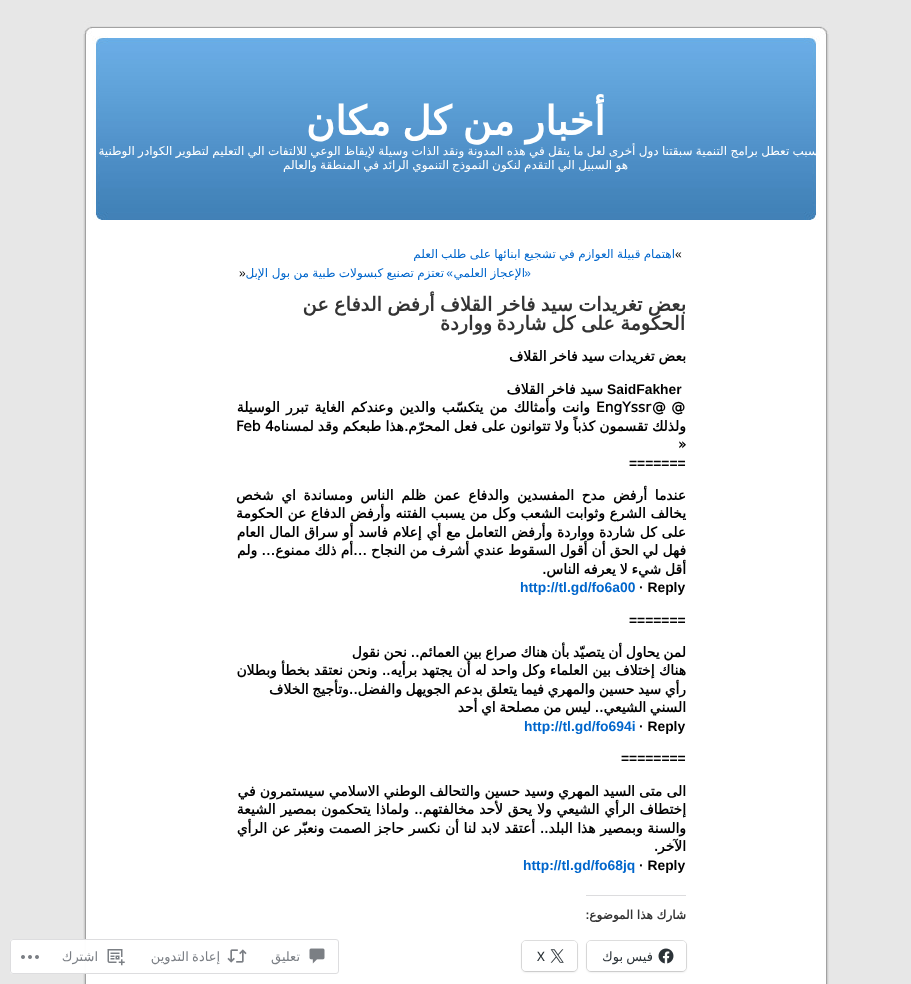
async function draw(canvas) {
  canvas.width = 911
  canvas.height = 984
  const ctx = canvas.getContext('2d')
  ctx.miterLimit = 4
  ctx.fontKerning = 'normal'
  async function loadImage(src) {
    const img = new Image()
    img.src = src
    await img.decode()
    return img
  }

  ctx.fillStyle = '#e7e7e7'
  ctx.fillRect(0, 0, 911, 984)
  ctx.drawImage(await loadImage('image0.png'), 83, 220, 746, 764)
  ctx.drawImage(await loadImage('image1.png'), 83, 20, 746, 200)
  ctx.wordSpacing = '-1.5px'
  ctx.direction = 'rtl'
  ctx.font = 'bold 40px DejaVu Sans'
  ctx.fillStyle = '#fff'
  ctx.fillText('أخبار من كل مكان', 605, 135)
  ctx.wordSpacing = '-0.5px'
  ctx.font = '12px DejaVu Sans'
  ctx.fillText('بسبب تعطل برامج التنمية سبقتنا دول أخرى لعل ما ينقل في هذه المدونة ونقد الذات وسيلة لإيقاظ الوعي للالتفات الي التعليم لتطوير الكوادر الوطنية و', 822, 155)
  ctx.fillText('هو السبيل الي التقدم', 628, 169)
  ctx.fillText('لنكون النموذج', 521, 169)
  ctx.fillText('التنموي الرائد في المنطقة والعالم', 449, 169)
  ctx.wordSpacing = '0px'
  ctx.direction = 'ltr'
  ctx.font = '12px Liberation Sans'
  ctx.fillStyle = '#000'
  ctx.fillText('«', 675, 258)
  ctx.wordSpacing = '-0.5px'
  ctx.direction = 'rtl'
  ctx.font = '12px DejaVu Sans'
  ctx.fillStyle = '#06c'
  ctx.fillText('اهتمام قبيلة العوازم في تشجيع ابنائها على طلب', 675, 258)
  ctx.wordSpacing = '0px'
  ctx.fillText('العلم', 438, 258)
  ctx.font = '12px Liberation Sans'
  ctx.fillText('«', 531, 277)
  ctx.wordSpacing = '-0.5px'
  ctx.font = '12px DejaVu Sans'
  ctx.fillText('الإعجاز العلمي', 525, 277)
  ctx.wordSpacing = '0px'
  ctx.font = '12px Liberation Sans'
  ctx.fillText('»', 453, 277)
  ctx.wordSpacing = '-0.5px'
  ctx.font = '12px DejaVu Sans'
  ctx.fillText('تعتزم تصنيع كبسولات طبية من بول', 444, 277)
  ctx.wordSpacing = '0px'
  ctx.fillText('الإبل', 268, 277)
  ctx.direction = 'ltr'
  ctx.font = '12px Liberation Sans'
  ctx.fillStyle = '#000'
  ctx.fillText('»', 239, 277)
  ctx.wordSpacing = '-0.75px'
  ctx.direction = 'rtl'
  ctx.font = 'bold 19.25px DejaVu Sans'
  ctx.fillStyle = '#333'
  ctx.fillText('بعض تغريدات سيد فاخر القلاف أرفض الدفاع عن', 686, 311)
  ctx.fillText('الحكومة على كل شاردة', 685, 330)
  ctx.wordSpacing = '0px'
  ctx.fillText('وواردة', 492, 330)
  ctx.wordSpacing = '-0.5px'
  ctx.font = 'bold 13.85px DejaVu Sans'
  ctx.fillStyle = '#000'
  ctx.fillText('بعض تغريدات سيد فاخر القلاف', 686, 361)
  ctx.wordSpacing = '0px'
  ctx.direction = 'ltr'
  ctx.font = 'bold 13.85px Liberation Sans'
  ctx.fillText('SaidFakher', 607, 394)
  ctx.direction = 'rtl'
  ctx.font = 'bold 13.85px DejaVu Sans'
  ctx.fillText('سيد فاخر القلاف', 603, 394)
  ctx.wordSpacing = '1px'
  ctx.direction = 'ltr'
  ctx.fillText('@ @', 652, 412)
  ctx.wordSpacing = '0px'
  ctx.fillText('EngYssr', 596, 412)
  ctx.wordSpacing = '1.75px'
  ctx.direction = 'rtl'
  ctx.fillText('وانت وأمثالك من يتكسّب والدين وعندكم الغاية تبرر الوسيلة', 590, 412)
  ctx.wordSpacing = '-0.25px'
  ctx.fillText('ولذلك تقسمون كذباً ولا تتوانون على فعل المحرّم.هذا طبعكم وقد لمسناه', 686, 431)
  ctx.wordSpacing = '0px'
  ctx.direction = 'ltr'
  ctx.fillText('Feb 4', 236, 431)
  ctx.fillText('»', 678, 449)
  ctx.font = 'bold 13.85px Liberation Sans'
  ctx.fillText('=======', 629, 468)
  ctx.wordSpacing = '3.25px'
  ctx.direction = 'rtl'
  ctx.font = 'bold 13.85px DejaVu Sans'
  ctx.fillText('عندما أرفض مدح المفسدين والدفاع عمن ظلم الناس ومساندة اي شخص', 686, 500)
  ctx.wordSpacing = '0.25px'
  ctx.fillText('يخالف الشرع وثوابت الشعب وكل من يسبب الفتنه وأرفض الدفاع عن الحكومة', 686, 518)
  ctx.wordSpacing = '0.4px'
  ctx.fillText('على كل شاردة وواردة وأرفض التعامل مع أي إعلام فاسد أو سراق المال العام', 686, 537)
  ctx.wordSpacing = '-0.2px'
  ctx.fillText('فهل لي الحق أن أقول السقوط عندي أشرف من النجاح …أم ذلك ممنوع… ولم', 686, 555)
  ctx.wordSpacing = '-0.5px'
  ctx.fillText('أقل شيء لا يعرفه الناس.', 686, 574)
  ctx.wordSpacing = '0px'
  ctx.direction = 'ltr'
  ctx.font = 'bold 13.85px Liberation Sans'
  ctx.fillText('· Reply', 639, 592)
  ctx.fillStyle = '#06c'
  ctx.fillText('http://tl.gd/fo6a00', 520, 592)
  ctx.fillStyle = '#000'
  ctx.fillText('=======', 629, 625)
  ctx.wordSpacing = '-0.75px'
  ctx.direction = 'rtl'
  ctx.font = 'bold 13.85px DejaVu Sans'
  ctx.fillText('لمن يحاول أن يتصيّد بأن هناك صراع بين العمائم.. نحن نقول', 686, 657)
  ctx.wordSpacing = '0px'
  ctx.fillText('هناك إختلاف بين العلماء وكل واحد له أن يجتهد برأيه.. ونحن نعتقد بخطأ وبطلان', 686, 675)
  ctx.wordSpacing = '-0.75px'
  ctx.fillText('رأي سيد حسين والمهري فيما يتعلق بدعم الجويهل والفضل..وتأجيج الخلاف', 686, 694)
  ctx.fillText('السني الشيعي.. ليس من مصلحة اي أحد', 686, 712)
  ctx.wordSpacing = '0px'
  ctx.direction = 'ltr'
  ctx.font = 'bold 13.85px Liberation Sans'
  ctx.fillText('· Reply', 639, 731)
  ctx.fillStyle = '#06c'
  ctx.fillText('http://tl.gd/fo694i', 524, 731)
  ctx.fillStyle = '#000'
  ctx.fillText('========', 621, 763)
  ctx.wordSpacing = '-0.25px'
  ctx.direction = 'rtl'
  ctx.font = 'bold 13.85px DejaVu Sans'
  ctx.fillText('الى متى السيد المهري وسيد حسين والتحالف الوطني الاسلامي سيستمرون في', 686, 796)
  ctx.wordSpacing = '0.5px'
  ctx.fillText('إختطاف الرأي الشيعي ولا يحق لأحد مخالفتهم.. ولماذا يتحكمون بمصير الشيعة', 686, 814)
  ctx.wordSpacing = '0.25px'
  ctx.fillText('والسنة وبمصير هذا البلد.. أعتقد لابد لنا أن نكسر حاجز الصمت ونعبّر عن الرأي', 686, 833)
  ctx.wordSpacing = '0px'
  ctx.fillText('الآخر.', 686, 851)
  ctx.direction = 'ltr'
  ctx.font = 'bold 13.85px Liberation Sans'
  ctx.fillText('· Reply', 639, 870)
  ctx.fillStyle = '#06c'
  ctx.fillText('http://tl.gd/fo68jq', 523, 870)
  ctx.fillStyle = '#dcdcde'
  ctx.fillRect(586, 895, 100, 1)
  ctx.direction = 'rtl'
  ctx.font = 'bold 12px DejaVu Sans'
  ctx.fillStyle = '#333'
  ctx.fillText('شارك هذا الموضوع:', 686, 919)
  ctx.beginPath()
  ctx.roundRect(586.5, 940.5, 100, 31, 4.5)
  ctx.strokeStyle = '#e0e0e0'
  ctx.stroke()
  ctx.fillStyle = '#0000001f'
  ctx.filter = 'blur(1px)'
  ctx.beginPath()
  ctx.roundRect(587, 942, 99, 30, 4)
  ctx.fill()
  ctx.filter = 'none'
  ctx.fillStyle = '#fff'
  ctx.beginPath()
  ctx.roundRect(587, 941, 99, 30, 4)
  ctx.fill()
  ctx.drawImage(await loadImage('image2.png'), 658, 948, 16, 16)
  ctx.wordSpacing = '-1px'
  ctx.font = '13px DejaVu Sans'
  ctx.fillStyle = '#2c3338'
  ctx.fillText('فيس بوك', 653, 961)
  ctx.beginPath()
  ctx.roundRect(521.5, 940.5, 56, 31, 4.5)
  ctx.stroke()
  ctx.fillStyle = '#0000001f'
  ctx.filter = 'blur(1px)'
  ctx.beginPath()
  ctx.roundRect(522, 942, 55, 30, 4)
  ctx.fill()
  ctx.filter = 'none'
  ctx.fillStyle = '#fff'
  ctx.beginPath()
  ctx.roundRect(522, 941, 55, 30, 4)
  ctx.fill()
  ctx.drawImage(await loadImage('image3.png'), 550, 949, 14, 14)
  ctx.wordSpacing = '0px'
  ctx.direction = 'ltr'
  ctx.font = '500 13px Open Sans'
  ctx.fillStyle = '#2c3338'
  ctx.fillText('X', 537, 961)
  ctx.fillStyle = '#fffffffa'
  ctx.beginPath()
  ctx.roundRect(10, 939, 329, 35, 3)
  ctx.fill()
  ctx.beginPath()
  ctx.roundRect(10.5, 939.5, 328, 34, 2.5)
  ctx.strokeStyle = '#dcdcdefa'
  ctx.stroke()
  ctx.drawImage(await loadImage('image4.png'), 309, 948, 16, 16)
  ctx.direction = 'rtl'
  ctx.font = '13px DejaVu Sans'
  ctx.fillStyle = '#7b7f85'
  ctx.fillText('تعليق', 300, 961)
  ctx.drawImage(await loadImage('image5.png'), 227, 949, 20, 14)
  ctx.wordSpacing = '-1px'
  ctx.fillText('إعادة التدوين', 220, 961)
  ctx.drawImage(await loadImage('image6.png'), 107, 949, 18, 17)
  ctx.wordSpacing = '0px'
  ctx.fillText('اشترك', 98, 961)
  ctx.drawImage(await loadImage('image7.png'), 21, 955, 18, 4)
}

draw(document.querySelector('canvas'))
